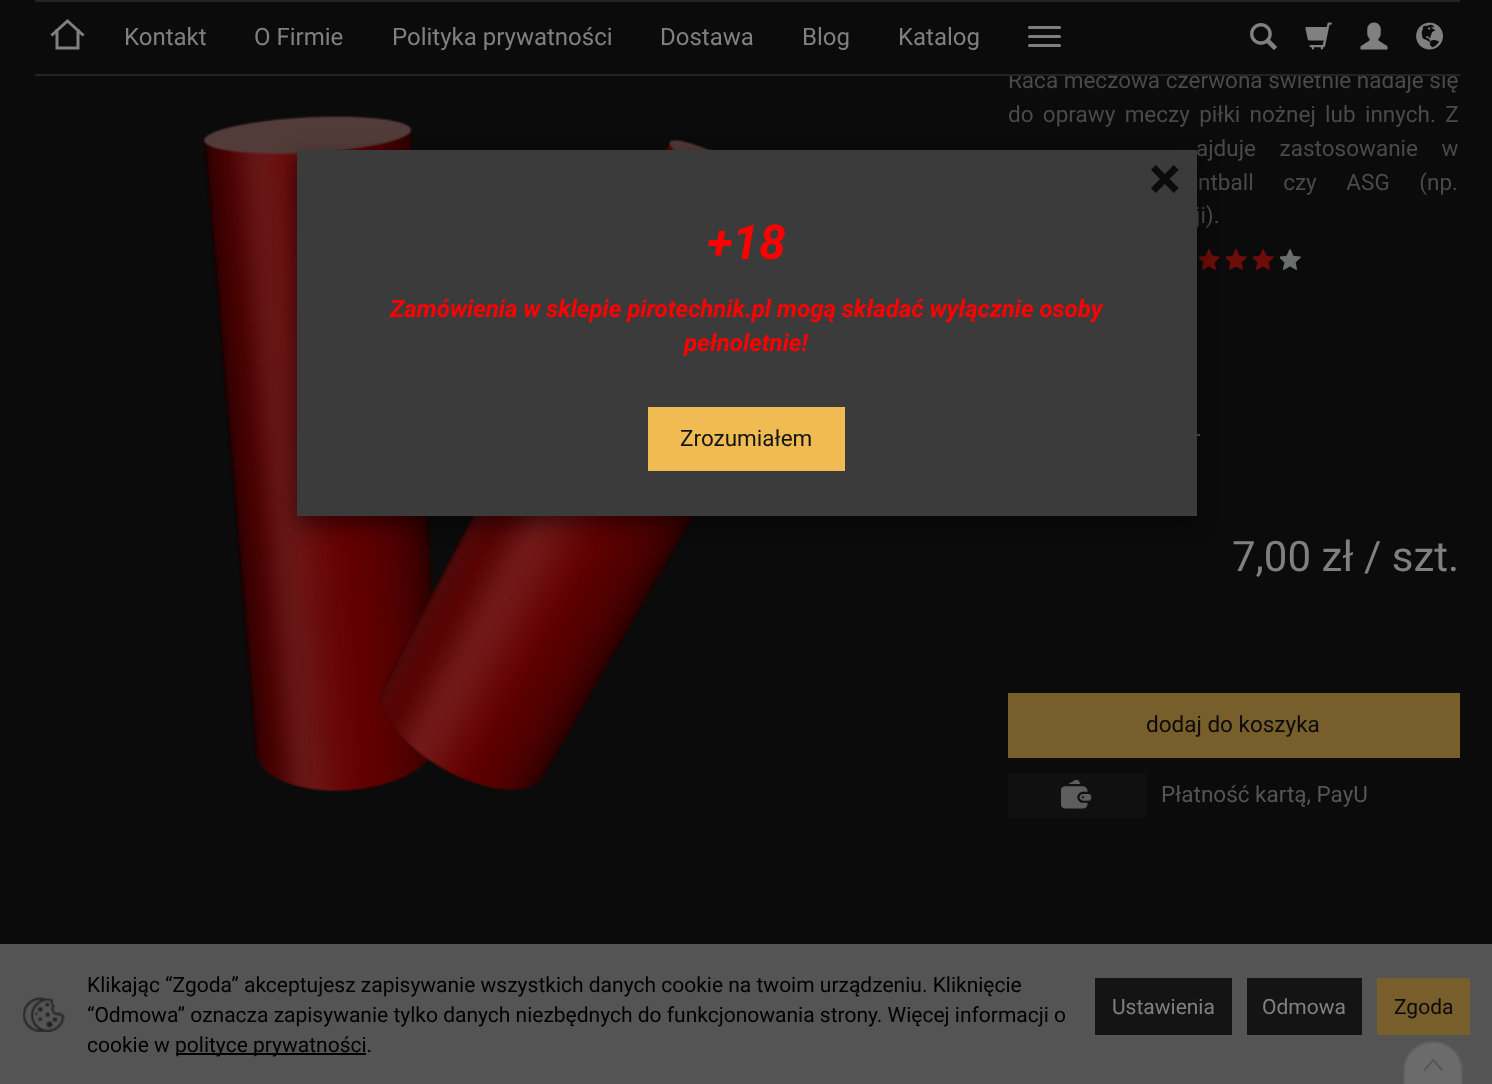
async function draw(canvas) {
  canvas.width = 1492
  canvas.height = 1084
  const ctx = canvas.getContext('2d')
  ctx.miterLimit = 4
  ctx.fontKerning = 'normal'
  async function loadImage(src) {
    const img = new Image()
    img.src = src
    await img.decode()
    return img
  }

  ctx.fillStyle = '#0b0b0b'
  ctx.fillRect(0, 0, 1492, 1084)
  ctx.fillStyle = '#545454'
  ctx.fillRect(0, 944, 1492, 140)
  ctx.font = '22.5px Roboto'
  ctx.fillStyle = '#4a4a4a'
  ctx.fillText('Raca meczowa czerwona świetnie nadaje się', 1008, 88)
  ctx.fillStyle = '#0b0b0b'
  ctx.fillRect(1009, 71, 437, 3)
  ctx.fillStyle = '#232323'
  ctx.fillRect(35, 0, 1425, 2)
  ctx.fillRect(35, 74, 1425, 2)
  ctx.beginPath()
  ctx.moveTo(52.5, 34.5)
  ctx.lineTo(57, 30.5)
  ctx.moveTo(57, 30.5)
  ctx.lineTo(67.5, 21)
  ctx.lineTo(78, 30.5)
  ctx.moveTo(57, 30.5)
  ctx.lineTo(57, 48)
  ctx.lineTo(78, 48)
  ctx.lineTo(78, 30.5)
  ctx.moveTo(82.5, 34.5)
  ctx.lineTo(78, 30.5)
  ctx.strokeStyle = '#808080'
  ctx.lineWidth = 3
  ctx.lineCap = 'square'
  ctx.stroke()
  ctx.font = '24px Roboto'
  ctx.fillStyle = '#808080'
  ctx.fillText('Kontakt', 124, 45)
  ctx.fillText('O Firmie', 254, 45)
  ctx.fillText('Polityka prywatności', 392, 45)
  ctx.fillText('Dostawa', 660, 45)
  ctx.fillText('Blog', 802, 45)
  ctx.fillText('Katalog', 898, 45)
  ctx.beginPath()
  ctx.roundRect(1028, 26, 33, 3, 1.5)
  ctx.fill()
  ctx.beginPath()
  ctx.roundRect(1028, 35, 33, 3, 1.5)
  ctx.fill()
  ctx.beginPath()
  ctx.roundRect(1028, 44, 33, 3, 1.5)
  ctx.fill()
  ctx.drawImage(await loadImage('image0.png'), 1250, 23, 27, 27)
  ctx.drawImage(await loadImage('image1.png'), 1305, 22, 27, 28)
  ctx.drawImage(await loadImage('image2.png'), 1360, 22, 28, 28)
  ctx.drawImage(await loadImage('image3.png'), 1416, 22, 27, 28)
  ctx.drawImage(await loadImage('image4.png'), 203, 115, 510, 677)
  ctx.wordSpacing = '3.75px'
  ctx.font = '22.5px Roboto'
  ctx.fillStyle = '#4a4a4a'
  ctx.fillText('do oprawy meczy piłki nożnej lub innych. Z', 1008, 122)
  ctx.wordSpacing = '18px'
  ctx.fillText('ajduje zastosowanie w', 1196, 156)
  ctx.wordSpacing = '24px'
  ctx.fillText('ntball czy ASG (np.', 1198, 190)
  ctx.wordSpacing = '0px'
  ctx.fillText('ji).', 1195, 223)
  ctx.drawImage(await loadImage('image5.png'), 1199, 249, 21, 21)
  ctx.drawImage(await loadImage('image5.png'), 1226, 249, 21, 21)
  ctx.drawImage(await loadImage('image5.png'), 1253, 249, 21, 21)
  ctx.drawImage(await loadImage('image6.png'), 1280, 249, 21, 21)
  ctx.fillStyle = '#555'
  ctx.fillRect(1197, 434, 3, 2)
  ctx.font = '42px Roboto'
  ctx.fillStyle = '#808080'
  ctx.fillText('7,00 zł / szt.', 1232, 571)
  ctx.fillStyle = '#785e2a'
  ctx.fillRect(1008, 693, 452, 65)
  ctx.font = '22.5px Roboto'
  ctx.fillStyle = '#0b0b0b'
  ctx.fillText('dodaj do koszyka', 1146, 732)
  ctx.fillStyle = '#101010'
  ctx.fillRect(1008, 773, 138, 45)
  ctx.drawImage(await loadImage('image7.png'), 1061, 780, 31, 29)
  ctx.fillStyle = '#555'
  ctx.fillText('Płatność kartą, PayU', 1161, 802)
  ctx.drawImage(await loadImage('image8.png'), 23, 997, 42, 35)
  ctx.font = '21px Roboto'
  ctx.fillStyle = '#000'
  ctx.fillText('Klikając “Zgoda” akceptujesz zapisywanie wszystkich danych cookie na twoim urządzeniu. Kliknięcie', 87, 992)
  ctx.fillText('“Odmowa” oznacza zapisywanie tylko danych niezbędnych do funkcjonowania strony. Więcej informacji o', 87, 1022)
  ctx.fillText('cookie w', 87, 1052)
  ctx.fillRect(176, 1053, 190, 2)
  ctx.fillText('polityce prywatności.', 175, 1052)
  ctx.fillStyle = '#141414'
  ctx.fillRect(1095, 978, 137, 57)
  ctx.fillStyle = '#808080'
  ctx.fillText('Ustawienia', 1112, 1014)
  ctx.fillStyle = '#141414'
  ctx.fillRect(1247, 978, 115, 57)
  ctx.fillStyle = '#808080'
  ctx.fillText('Odmowa', 1262, 1014)
  ctx.fillStyle = '#785e2a'
  ctx.fillRect(1377, 978, 93, 57)
  ctx.fillStyle = '#0b0b0b'
  ctx.fillText('Zgoda', 1394, 1014)
  ctx.fillStyle = '#00000080'
  ctx.filter = 'blur(11px)'
  ctx.beginPath()
  ctx.rect(297, 158, 900, 366)
  ctx.fill()
  ctx.filter = 'none'
  ctx.fillStyle = '#3b3b3b'
  ctx.fillRect(297, 150, 900, 366)
  ctx.font = 'bold 60px Roboto'
  ctx.fillStyle = '#0b0b0b'
  ctx.fillText('×', 1149, 199)
  ctx.font = 'italic bold 48px Roboto'
  ctx.fillStyle = '#f00'
  ctx.fillText('+18', 707, 259)
  ctx.font = 'italic bold 24px Roboto'
  ctx.fillText('Zamówienia w sklepie pirotechnik.pl mogą składać wyłącznie osoby', 390, 317)
  ctx.fillText('pełnoletnie!', 684, 351)
  ctx.fillStyle = '#f0bb53'
  ctx.fillRect(648, 407, 197, 64)
  ctx.font = '22.5px Roboto'
  ctx.fillStyle = '#161616'
  ctx.fillText('Zrozumiałem', 680, 446)
  ctx.fillStyle = '#6b6b6b'
  ctx.beginPath()
  ctx.moveTo(1433, 1042)
  ctx.bezierCurveTo(1449, 1042, 1462, 1055, 1462, 1071)
  ctx.lineTo(1462, 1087)
  ctx.lineTo(1404, 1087)
  ctx.lineTo(1404, 1071)
  ctx.bezierCurveTo(1404, 1055, 1417, 1042, 1433, 1042)
  ctx.closePath()
  ctx.fill()
  ctx.strokeStyle = '#606060'
  ctx.lineWidth = 2
  ctx.stroke()
  ctx.beginPath()
  ctx.moveTo(1424.5, 1070)
  ctx.lineTo(1433, 1060)
  ctx.lineTo(1442, 1070)
  ctx.strokeStyle = '#565656'
  ctx.lineWidth = 1.9
  ctx.lineCap = 'round'
  ctx.lineJoin = 'round'
  ctx.stroke()
}

draw(document.querySelector('canvas'))
